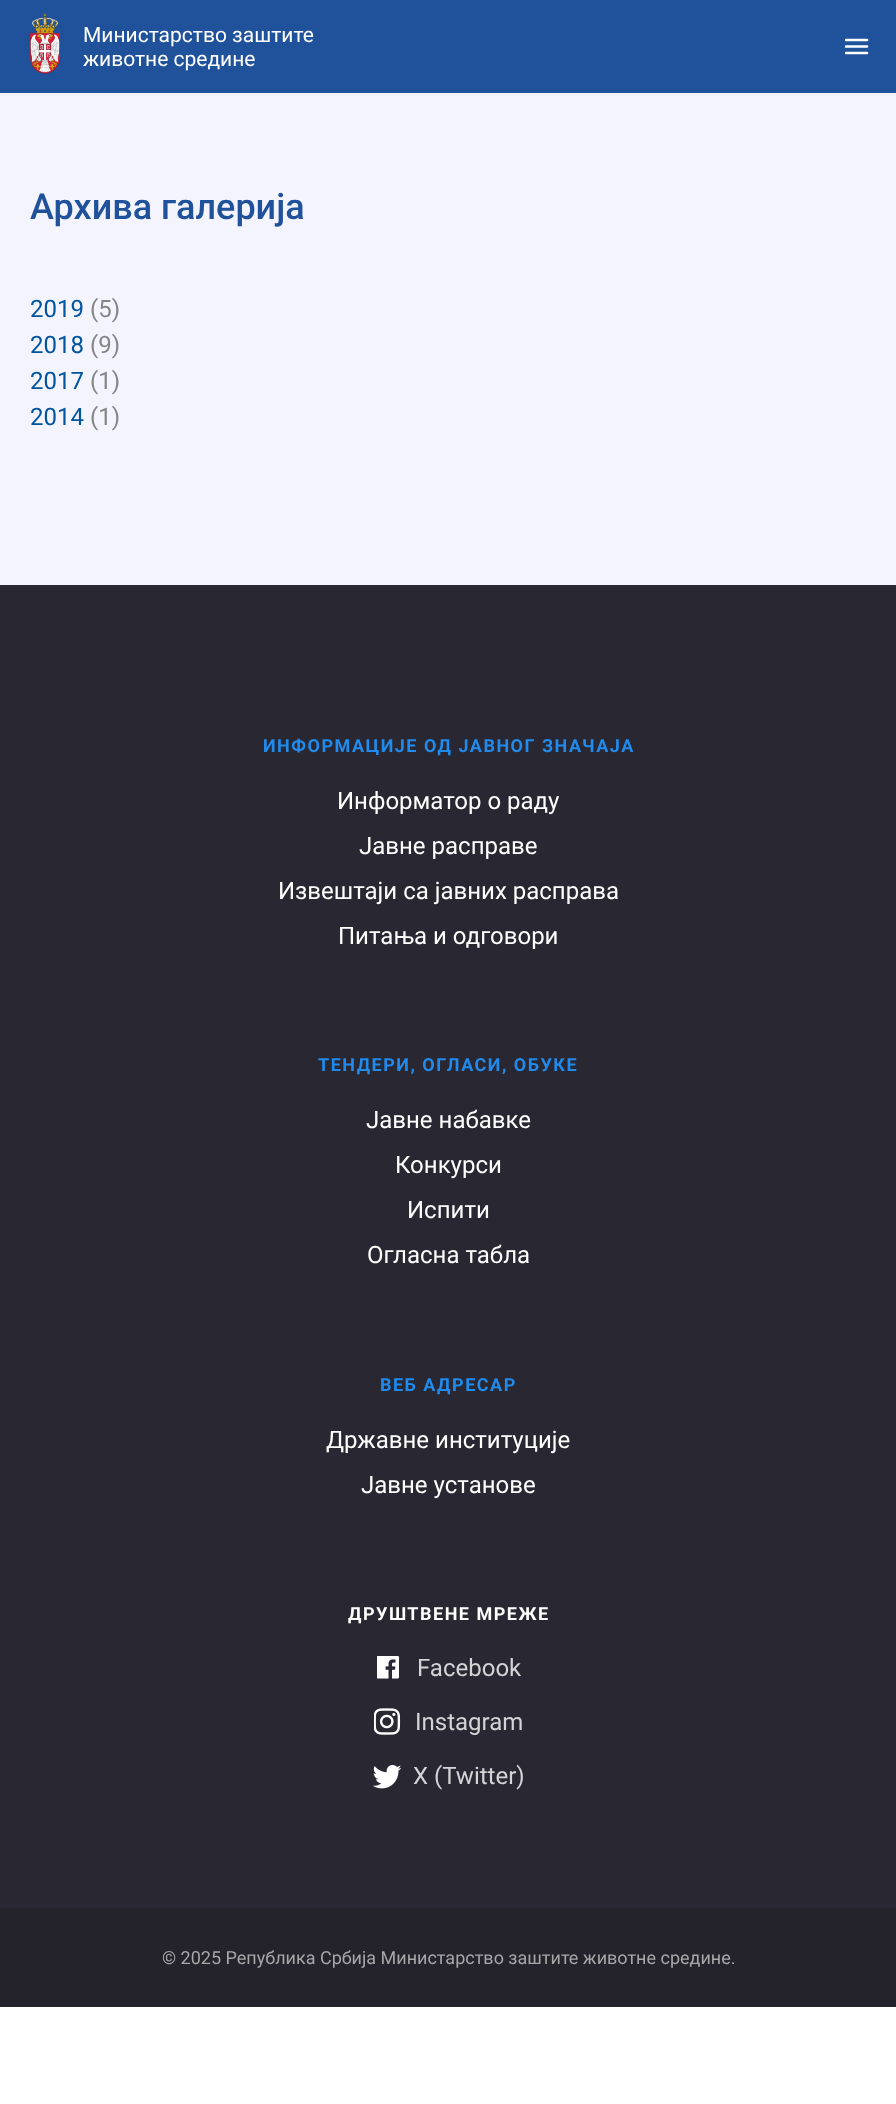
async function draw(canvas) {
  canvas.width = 896
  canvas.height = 2104
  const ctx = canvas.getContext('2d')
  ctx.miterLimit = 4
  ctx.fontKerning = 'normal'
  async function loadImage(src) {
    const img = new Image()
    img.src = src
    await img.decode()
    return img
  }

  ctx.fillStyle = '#fff'
  ctx.fillRect(0, 0, 896, 2104)
  ctx.fillStyle = '#20519b'
  ctx.fillRect(0, 0, 896, 93)
  ctx.drawImage(await loadImage('image0.png'), 30, 13, 30, 61)
  ctx.font = '21px Roboto'
  ctx.fillStyle = '#fff'
  ctx.fillText('Министарство заштите', 83, 42)
  ctx.fillText('животне средине', 83, 66)
  ctx.save()
  ctx.beginPath()
  ctx.rect(845, 38, 24, 18)
  ctx.clip()
  ctx.beginPath()
  ctx.moveTo(846, 46.5)
  ctx.lineTo(867, 46.5)
  ctx.moveTo(846, 40)
  ctx.lineTo(867, 40)
  ctx.moveTo(846, 53)
  ctx.lineTo(867, 53)
  ctx.strokeStyle = '#fff'
  ctx.lineWidth = 2.7
  ctx.lineCap = 'round'
  ctx.stroke()
  ctx.restore()
  ctx.fillStyle = '#f3f4fe'
  ctx.fillRect(0, 93, 896, 492)
  ctx.font = '500 36px Roboto'
  ctx.fillStyle = '#20519b'
  ctx.fillText('Архива галерија', 30, 219)
  ctx.font = '24px Roboto'
  ctx.fillStyle = '#0154a0'
  ctx.fillText('2019', 30, 317)
  ctx.fillStyle = '#858585'
  ctx.fillText('(5)', 90, 317)
  ctx.fillStyle = '#0154a0'
  ctx.fillText('2018', 30, 353)
  ctx.fillStyle = '#858585'
  ctx.fillText('(9)', 90, 353)
  ctx.fillStyle = '#0154a0'
  ctx.fillText('2017', 30, 389)
  ctx.fillStyle = '#858585'
  ctx.fillText('(1)', 90, 389)
  ctx.fillStyle = '#0154a0'
  ctx.fillText('2014', 30, 425)
  ctx.fillStyle = '#858585'
  ctx.fillText('(1)', 90, 425)
  ctx.fillStyle = '#292731'
  ctx.fillRect(0, 585, 896, 1323)
  ctx.letterSpacing = '1.5px'
  ctx.font = 'bold 18px Roboto'
  ctx.fillStyle = '#208bec'
  ctx.fillText('ИНФОРМАЦИЈЕ ОД ЈАВНОГ ЗНАЧАЈА', 263, 752)
  ctx.letterSpacing = '0px'
  ctx.font = '24px Roboto'
  ctx.fillStyle = '#fff'
  ctx.fillText('Информатор о раду', 337, 809)
  ctx.fillText('Јавне расправе', 359, 854)
  ctx.fillText('Извештаји са јавних расправа', 278, 899)
  ctx.fillText('Питања и одговори', 338, 944)
  ctx.letterSpacing = '1.5px'
  ctx.font = 'bold 18px Roboto'
  ctx.fillStyle = '#208bec'
  ctx.fillText('ТЕНДЕРИ, ОГЛАСИ, ОБУКЕ', 318, 1071)
  ctx.letterSpacing = '0px'
  ctx.font = '24px Roboto'
  ctx.fillStyle = '#fff'
  ctx.fillText('Јавне набавке', 366, 1128)
  ctx.fillText('Конкурси', 395, 1173)
  ctx.fillText('Испити', 407, 1218)
  ctx.fillText('Огласна табла', 367, 1263)
  ctx.letterSpacing = '1.5px'
  ctx.font = 'bold 18px Roboto'
  ctx.fillStyle = '#208bec'
  ctx.fillText('ВЕБ АДРЕСАР', 380, 1391)
  ctx.letterSpacing = '0px'
  ctx.font = '24px Roboto'
  ctx.fillStyle = '#fff'
  ctx.fillText('Државне институције', 326, 1448)
  ctx.fillText('Јавне установе', 361, 1493)
  ctx.letterSpacing = '1.5px'
  ctx.font = 'bold 18px Roboto'
  ctx.fillText('ДРУШТВЕНЕ МРЕЖЕ', 348, 1620)
  ctx.drawImage(await loadImage('image1.png'), 377, 1656, 22, 23)
  ctx.letterSpacing = '0px'
  ctx.font = '24px Roboto'
  ctx.fillStyle = '#d4d4d6'
  ctx.fillText('Facebook', 417, 1676)
  ctx.drawImage(await loadImage('image2.png'), 374, 1708, 27, 27)
  ctx.fillText('Instagram', 415, 1730)
  ctx.drawImage(await loadImage('image3.png'), 372, 1765, 30, 24)
  ctx.fillText('X (Twitter)', 413, 1784)
  ctx.fillStyle = '#24222b'
  ctx.fillRect(0, 1908, 896, 99)
  ctx.font = '18px Roboto'
  ctx.fillStyle = '#a7a7aa'
  ctx.fillText('© 2025 Република Србија Министарство заштите животне средине.', 162, 1964)
}

draw(document.querySelector('canvas'))
